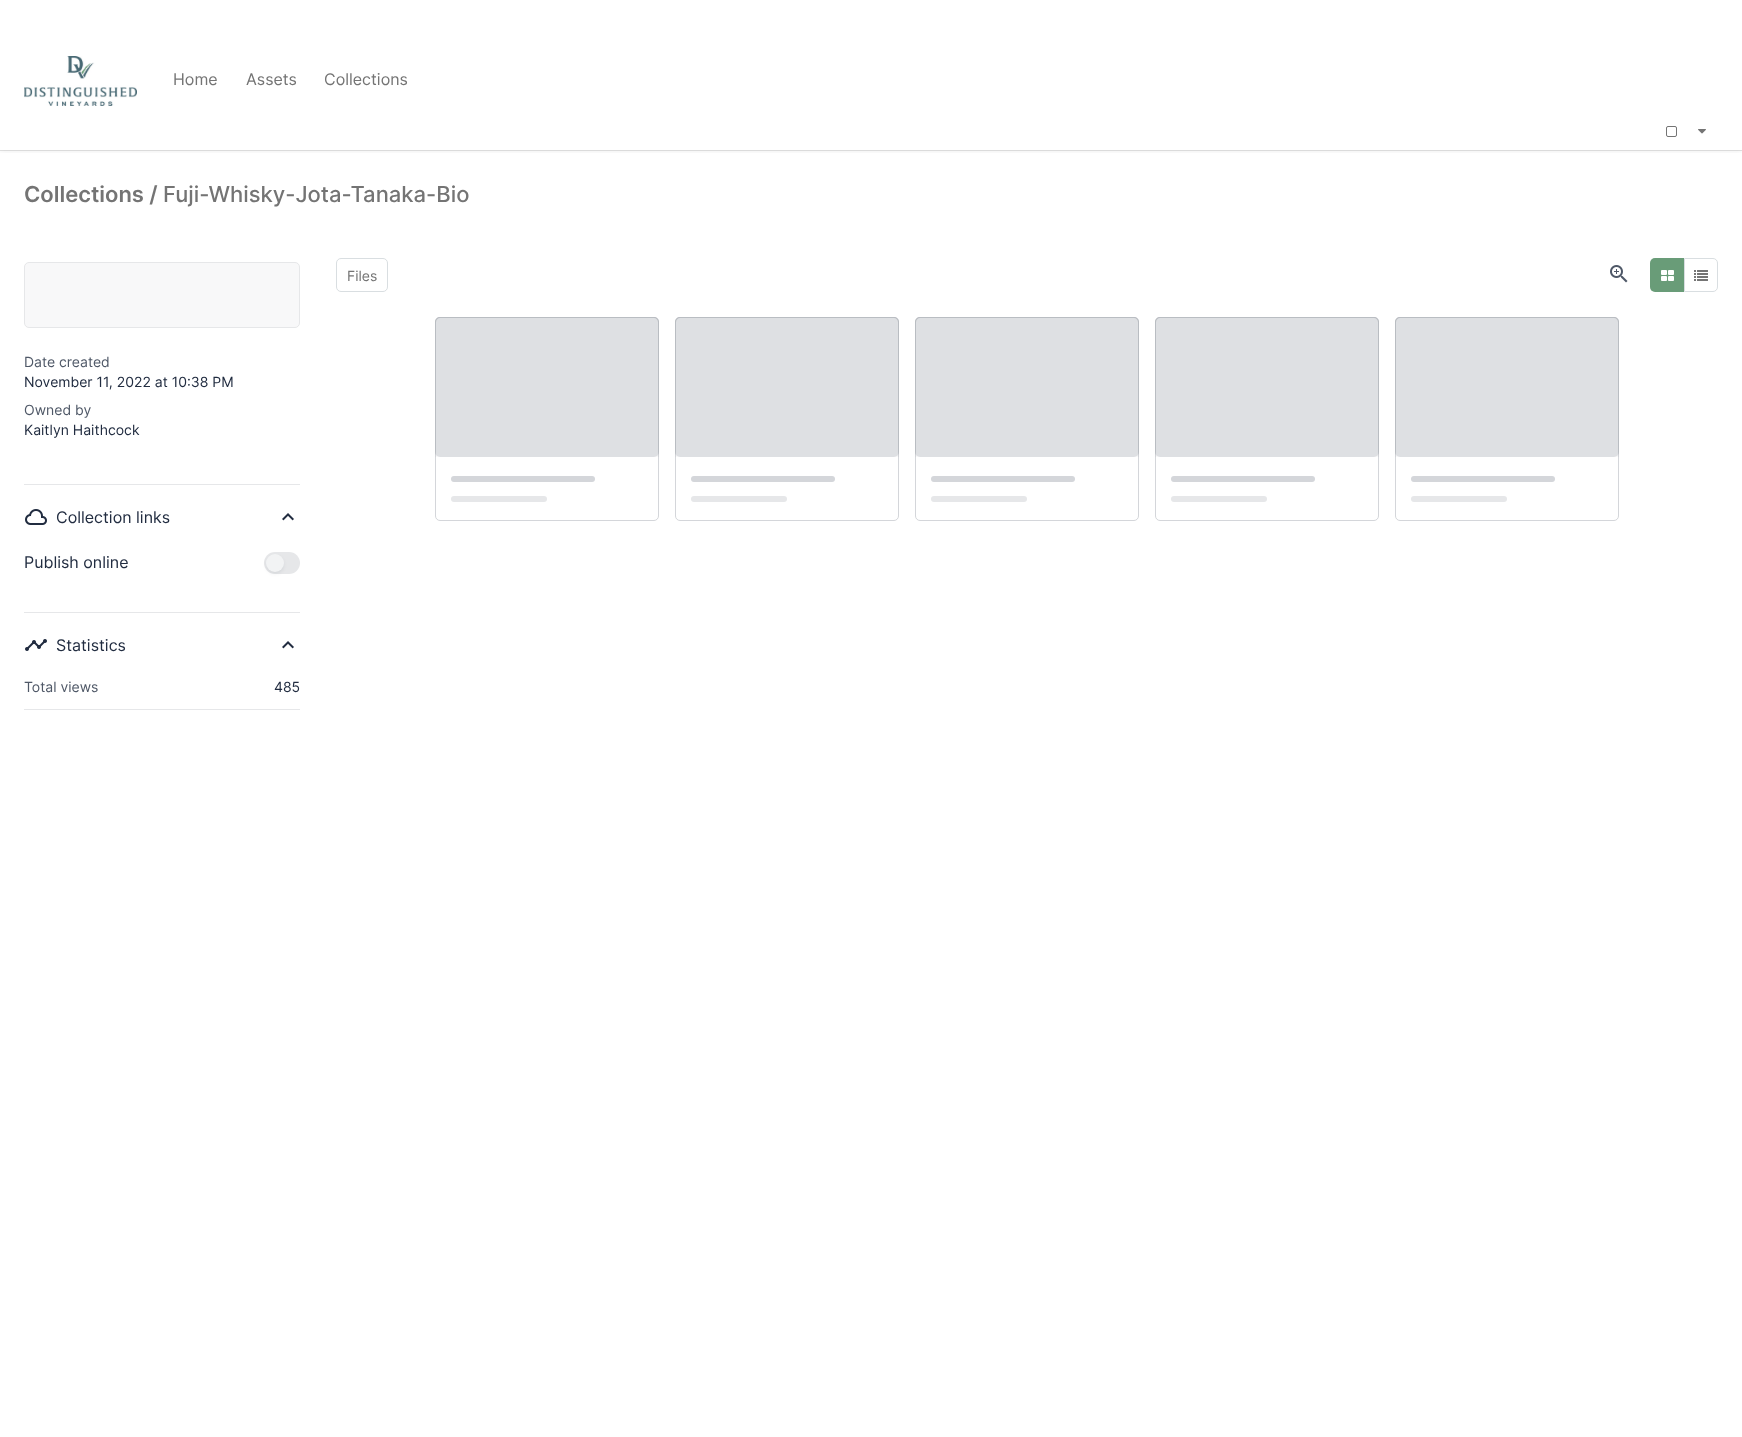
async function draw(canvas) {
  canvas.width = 1742
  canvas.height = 1437
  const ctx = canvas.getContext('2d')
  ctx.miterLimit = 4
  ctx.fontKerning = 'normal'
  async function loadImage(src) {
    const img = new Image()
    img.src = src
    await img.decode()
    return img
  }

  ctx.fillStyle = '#fff'
  ctx.fillRect(0, 0, 1742, 1437)
  ctx.save()
  ctx.beginPath()
  ctx.rect(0, 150, 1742, 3)
  ctx.clip()
  ctx.fillStyle = '#0000001a'
  ctx.filter = 'blur(3px)'
  ctx.beginPath()
  ctx.rect(0, 0, 1742, 150)
  ctx.fill()
  ctx.filter = 'none'
  ctx.restore()
  ctx.fillStyle = '#0000001a'
  ctx.fillRect(0, 150, 1742, 1)
  ctx.drawImage(await loadImage('image0.png'), 24, 56, 113, 50)
  ctx.font = '16px Inter'
  ctx.fillStyle = '#747474'
  ctx.fillText('Home', 173, 85)
  ctx.fillText('Assets', 246, 85)
  ctx.fillText('Collections', 324, 85)
  ctx.beginPath()
  ctx.roundRect(1666.5, 126.5, 10, 10, 1.5)
  ctx.strokeStyle = '#747474'
  ctx.stroke()
  ctx.drawImage(await loadImage('image1.png'), 1698, 129, 8, 5)
  ctx.font = '600 22px Inter'
  ctx.fillText('Collections /', 24, 202)
  ctx.font = '500 22px Inter'
  ctx.fillText('Fuji-Whisky-Jota-Tanaka-Bio', 163, 202)
  ctx.beginPath()
  ctx.roundRect(336.5, 258.5, 51, 33, 4.5)
  ctx.strokeStyle = '#d9dee1'
  ctx.stroke()
  ctx.font = '14px Inter'
  ctx.fillText('Files', 347, 281)
  ctx.drawImage(await loadImage('image2.png'), 1610, 265, 18, 18)
  ctx.fillStyle = '#699c78'
  ctx.beginPath()
  ctx.roundRect(1650, 258, 34, 34, [5, 0, 0, 5])
  ctx.fill()
  ctx.drawImage(await loadImage('image3.png'), 1661, 270, 13, 11)
  ctx.beginPath()
  ctx.roundRect(1684.5, 258.5, 33, 33, [0, 4.5, 4.5, 0])
  ctx.stroke()
  ctx.drawImage(await loadImage('image4.png'), 1694, 270, 14, 11)
  ctx.beginPath()
  ctx.roundRect(435.5, 317.5, 223, 203, 4.5)
  ctx.strokeStyle = '#d4d6da'
  ctx.stroke()
  ctx.fillStyle = '#f8f8f9'
  ctx.beginPath()
  ctx.roundRect(435, 317, 224, 140, [5, 5, 0, 0])
  ctx.fill()
  ctx.fillStyle = '#0310261a'
  ctx.beginPath()
  ctx.roundRect(435, 317, 224, 140, 5)
  ctx.fill()
  ctx.fillStyle = '#0310262b'
  ctx.beginPath()
  ctx.moveTo(440, 317)
  ctx.lineTo(654, 317)
  ctx.bezierCurveTo(657, 317, 659, 319, 659, 322)
  ctx.lineTo(659, 457)
  ctx.lineTo(435, 457)
  ctx.lineTo(435, 322)
  ctx.bezierCurveTo(435, 319, 437, 317, 440, 317)
  ctx.closePath()
  ctx.moveTo(440, 318)
  ctx.lineTo(654, 318)
  ctx.bezierCurveTo(656, 318, 658, 320, 658, 322)
  ctx.lineTo(658, 457)
  ctx.lineTo(436, 457)
  ctx.lineTo(436, 322)
  ctx.bezierCurveTo(436, 320, 438, 318, 440, 318)
  ctx.closePath()
  ctx.fill('evenodd')
  ctx.fillStyle = '#d4d6da'
  ctx.beginPath()
  ctx.roundRect(451, 476, 144, 6, 3)
  ctx.fill()
  ctx.fillStyle = '#e6e7e9'
  ctx.beginPath()
  ctx.roundRect(451, 496, 96, 6, 3)
  ctx.fill()
  ctx.beginPath()
  ctx.roundRect(675.5, 317.5, 223, 203, 4.5)
  ctx.stroke()
  ctx.fillStyle = '#f8f8f9'
  ctx.beginPath()
  ctx.roundRect(675, 317, 224, 140, [5, 5, 0, 0])
  ctx.fill()
  ctx.fillStyle = '#0310261a'
  ctx.beginPath()
  ctx.roundRect(675, 317, 224, 140, 5)
  ctx.fill()
  ctx.fillStyle = '#0310262b'
  ctx.beginPath()
  ctx.moveTo(680, 317)
  ctx.lineTo(894, 317)
  ctx.bezierCurveTo(897, 317, 899, 319, 899, 322)
  ctx.lineTo(899, 457)
  ctx.lineTo(675, 457)
  ctx.lineTo(675, 322)
  ctx.bezierCurveTo(675, 319, 677, 317, 680, 317)
  ctx.closePath()
  ctx.moveTo(680, 318)
  ctx.lineTo(894, 318)
  ctx.bezierCurveTo(896, 318, 898, 320, 898, 322)
  ctx.lineTo(898, 457)
  ctx.lineTo(676, 457)
  ctx.lineTo(676, 322)
  ctx.bezierCurveTo(676, 320, 678, 318, 680, 318)
  ctx.closePath()
  ctx.fill('evenodd')
  ctx.fillStyle = '#d4d6da'
  ctx.beginPath()
  ctx.roundRect(691, 476, 144, 6, 3)
  ctx.fill()
  ctx.fillStyle = '#e6e7e9'
  ctx.beginPath()
  ctx.roundRect(691, 496, 96, 6, 3)
  ctx.fill()
  ctx.beginPath()
  ctx.roundRect(915.5, 317.5, 223, 203, 4.5)
  ctx.stroke()
  ctx.fillStyle = '#f8f8f9'
  ctx.beginPath()
  ctx.roundRect(915, 317, 224, 140, [5, 5, 0, 0])
  ctx.fill()
  ctx.fillStyle = '#0310261a'
  ctx.beginPath()
  ctx.roundRect(915, 317, 224, 140, 5)
  ctx.fill()
  ctx.fillStyle = '#0310262b'
  ctx.beginPath()
  ctx.moveTo(920, 317)
  ctx.lineTo(1134, 317)
  ctx.bezierCurveTo(1137, 317, 1139, 319, 1139, 322)
  ctx.lineTo(1139, 457)
  ctx.lineTo(915, 457)
  ctx.lineTo(915, 322)
  ctx.bezierCurveTo(915, 319, 917, 317, 920, 317)
  ctx.closePath()
  ctx.moveTo(920, 318)
  ctx.lineTo(1134, 318)
  ctx.bezierCurveTo(1136, 318, 1138, 320, 1138, 322)
  ctx.lineTo(1138, 457)
  ctx.lineTo(916, 457)
  ctx.lineTo(916, 322)
  ctx.bezierCurveTo(916, 320, 918, 318, 920, 318)
  ctx.closePath()
  ctx.fill('evenodd')
  ctx.fillStyle = '#d4d6da'
  ctx.beginPath()
  ctx.roundRect(931, 476, 144, 6, 3)
  ctx.fill()
  ctx.fillStyle = '#e6e7e9'
  ctx.beginPath()
  ctx.roundRect(931, 496, 96, 6, 3)
  ctx.fill()
  ctx.beginPath()
  ctx.roundRect(1155.5, 317.5, 223, 203, 4.5)
  ctx.stroke()
  ctx.fillStyle = '#f8f8f9'
  ctx.beginPath()
  ctx.roundRect(1155, 317, 224, 140, [5, 5, 0, 0])
  ctx.fill()
  ctx.fillStyle = '#0310261a'
  ctx.beginPath()
  ctx.roundRect(1155, 317, 224, 140, 5)
  ctx.fill()
  ctx.fillStyle = '#0310262b'
  ctx.beginPath()
  ctx.moveTo(1160, 317)
  ctx.lineTo(1374, 317)
  ctx.bezierCurveTo(1377, 317, 1379, 319, 1379, 322)
  ctx.lineTo(1379, 457)
  ctx.lineTo(1155, 457)
  ctx.lineTo(1155, 322)
  ctx.bezierCurveTo(1155, 319, 1157, 317, 1160, 317)
  ctx.closePath()
  ctx.moveTo(1160, 318)
  ctx.lineTo(1374, 318)
  ctx.bezierCurveTo(1376, 318, 1378, 320, 1378, 322)
  ctx.lineTo(1378, 457)
  ctx.lineTo(1156, 457)
  ctx.lineTo(1156, 322)
  ctx.bezierCurveTo(1156, 320, 1158, 318, 1160, 318)
  ctx.closePath()
  ctx.fill('evenodd')
  ctx.fillStyle = '#d4d6da'
  ctx.beginPath()
  ctx.roundRect(1171, 476, 144, 6, 3)
  ctx.fill()
  ctx.fillStyle = '#e6e7e9'
  ctx.beginPath()
  ctx.roundRect(1171, 496, 96, 6, 3)
  ctx.fill()
  ctx.beginPath()
  ctx.roundRect(1395.5, 317.5, 223, 203, 4.5)
  ctx.stroke()
  ctx.fillStyle = '#f8f8f9'
  ctx.beginPath()
  ctx.roundRect(1395, 317, 224, 140, [5, 5, 0, 0])
  ctx.fill()
  ctx.fillStyle = '#0310261a'
  ctx.beginPath()
  ctx.roundRect(1395, 317, 224, 140, 5)
  ctx.fill()
  ctx.fillStyle = '#0310262b'
  ctx.beginPath()
  ctx.moveTo(1400, 317)
  ctx.lineTo(1614, 317)
  ctx.bezierCurveTo(1617, 317, 1619, 319, 1619, 322)
  ctx.lineTo(1619, 457)
  ctx.lineTo(1395, 457)
  ctx.lineTo(1395, 322)
  ctx.bezierCurveTo(1395, 319, 1397, 317, 1400, 317)
  ctx.closePath()
  ctx.moveTo(1400, 318)
  ctx.lineTo(1614, 318)
  ctx.bezierCurveTo(1616, 318, 1618, 320, 1618, 322)
  ctx.lineTo(1618, 457)
  ctx.lineTo(1396, 457)
  ctx.lineTo(1396, 322)
  ctx.bezierCurveTo(1396, 320, 1398, 318, 1400, 318)
  ctx.closePath()
  ctx.fill('evenodd')
  ctx.fillStyle = '#d4d6da'
  ctx.beginPath()
  ctx.roundRect(1411, 476, 144, 6, 3)
  ctx.fill()
  ctx.fillStyle = '#e6e7e9'
  ctx.beginPath()
  ctx.roundRect(1411, 496, 96, 6, 3)
  ctx.fill()
  ctx.fillStyle = '#f8f8f9'
  ctx.beginPath()
  ctx.roundRect(24.5, 262.5, 275, 65, 4.5)
  ctx.fill()
  ctx.strokeStyle = '#e6e7e9'
  ctx.stroke()
  ctx.fillStyle = '#4f5867'
  ctx.fillText('Date created', 24, 367)
  ctx.fillStyle = '#212c40'
  ctx.fillText('November 11, 2022 at 10:38 PM', 24, 387)
  ctx.fillStyle = '#4f5867'
  ctx.fillText('Owned by', 24, 415)
  ctx.fillStyle = '#212c40'
  ctx.fillText('Kaitlyn Haithcock', 24, 435)
  ctx.fillStyle = '#e6e7e9'
  ctx.fillRect(24, 484, 276, 1)
  ctx.drawImage(await loadImage('image5.png'), 25, 509, 22, 16)
  ctx.font = '16px Inter'
  ctx.fillStyle = '#212c40'
  ctx.fillText('Collection links', 56, 523)
  ctx.drawImage(await loadImage('image6.png'), 282, 513, 12, 8)
  ctx.fillText('Publish online', 24, 568)
  ctx.fillStyle = '#e6e7e9'
  ctx.beginPath()
  ctx.roundRect(264, 552, 36, 22, 11)
  ctx.fill()
  ctx.fillStyle = '#0310261a'
  ctx.filter = 'blur(2px)'
  ctx.beginPath()
  ctx.roundRect(267, 557, 16, 16, 8)
  ctx.fill()
  ctx.filter = 'none'
  ctx.fillStyle = '#f2f3f4'
  ctx.beginPath()
  ctx.arc(275, 563, 9, 0, 2 * Math.PI)
  ctx.fill()
  ctx.fillStyle = '#e6e7e9'
  ctx.fillRect(24, 612, 276, 1)
  ctx.drawImage(await loadImage('image7.png'), 25, 639, 22, 12)
  ctx.fillStyle = '#212c40'
  ctx.fillText('Statistics', 56, 651)
  ctx.drawImage(await loadImage('image6.png'), 282, 641, 12, 8)
  ctx.font = '14px Inter'
  ctx.fillStyle = '#4f5867'
  ctx.fillText('Total views', 24, 692)
  ctx.fillStyle = '#212c40'
  ctx.fillText('485', 274, 692)
  ctx.fillStyle = '#e6e7e9'
  ctx.fillRect(24, 709, 276, 1)
}

draw(document.querySelector('canvas'))
